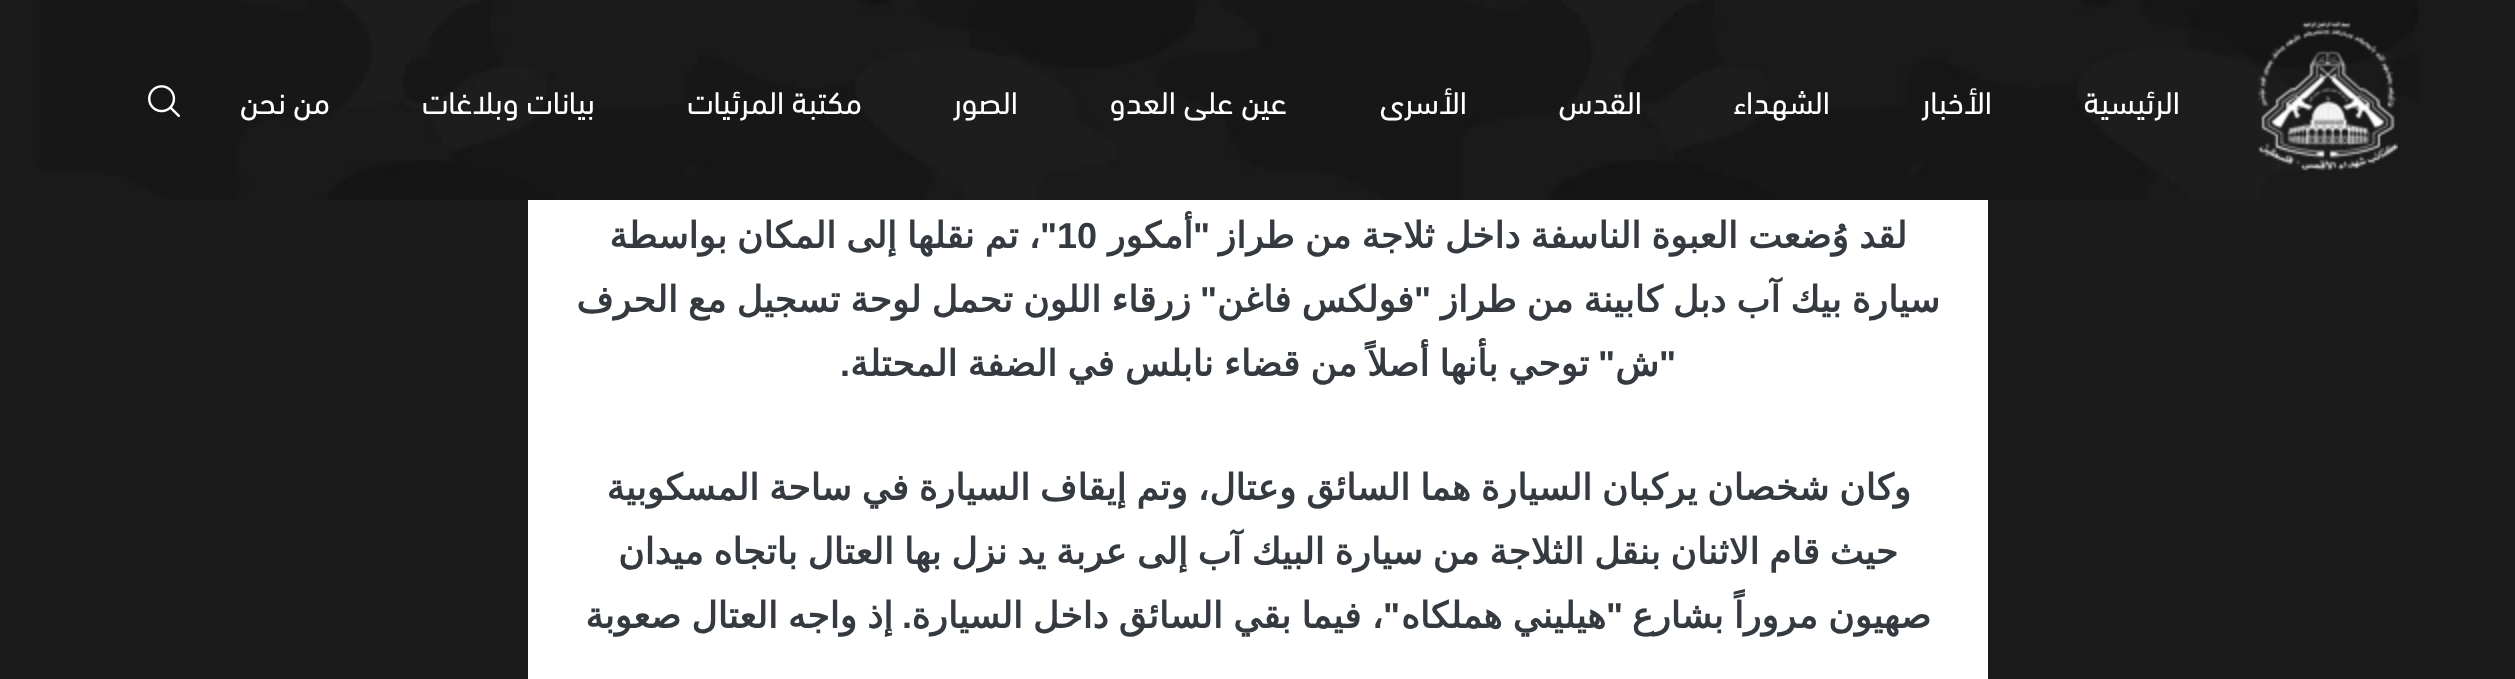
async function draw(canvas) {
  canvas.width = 2515
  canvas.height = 679
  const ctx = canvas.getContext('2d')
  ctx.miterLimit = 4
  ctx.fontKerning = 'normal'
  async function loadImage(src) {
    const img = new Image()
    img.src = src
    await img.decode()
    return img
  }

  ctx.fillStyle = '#1a1a1a'
  ctx.fillRect(0, 0, 2515, 679)
  ctx.drawImage(await loadImage('image0.png'), 39, 0, 2380, 200)
  ctx.drawImage(await loadImage('image1.png'), 2258, 21, 140, 151)
  ctx.direction = 'rtl'
  ctx.font = '32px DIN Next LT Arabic'
  ctx.fillStyle = '#fff'
  ctx.fillText('الرئيسية', 2180, 114)
  ctx.fillText('الأخبار', 1992, 114)
  ctx.fillText('الشهداء', 1830, 114)
  ctx.fillText('القدس', 1642, 114)
  ctx.fillText('الأسرى', 1467, 114)
  ctx.fillText('عين على العدو', 1287, 114)
  ctx.fillText('الصور', 1018, 114)
  ctx.fillText('مكتبة المرئيات', 862, 114)
  ctx.fillText('بيانات وبلاغات', 595, 114)
  ctx.fillText('من نحن', 330, 114)
  ctx.drawImage(await loadImage('image2.png'), 148, 85, 32, 33)
  ctx.fillRect(528, 200, 1460, 479)
  ctx.wordSpacing = '-1.25px'
  ctx.font = 'bold 36px DejaVu Sans'
  ctx.fillStyle = '#343a40'
  ctx.fillText('لقد وُضعت العبوة الناسفة داخل ثلاجة من طراز', 1907, 248)
  ctx.wordSpacing = '0px'
  ctx.font = 'bold 36px Liberation Sans'
  ctx.fillText('"', 1210, 248)
  ctx.font = 'bold 36px DejaVu Sans'
  ctx.fillText('أمكور', 1193, 248)
  ctx.direction = 'ltr'
  ctx.font = 'bold 36px Liberation Sans'
  ctx.fillText('10', 1057, 248)
  ctx.wordSpacing = '-1.5px'
  ctx.direction = 'rtl'
  ctx.font = 'bold 36px DejaVu Sans'
  ctx.fillText('، تم نقلها إلى المكان بواسطة', 1040, 248)
  ctx.wordSpacing = '0px'
  ctx.font = 'bold 36px Liberation Sans'
  ctx.fillText('"', 1057, 248)
  ctx.wordSpacing = '-1.25px'
  ctx.font = 'bold 36px DejaVu Sans'
  ctx.fillText('سيارة بيك آب دبل كابينة من طراز', 1940, 312)
  ctx.wordSpacing = '0px'
  ctx.font = 'bold 36px Liberation Sans'
  ctx.fillText('"', 1431, 312)
  ctx.wordSpacing = '-1.25px'
  ctx.font = 'bold 36px DejaVu Sans'
  ctx.fillText('فولكس فاغن', 1414, 312)
  ctx.wordSpacing = '0px'
  ctx.font = 'bold 36px Liberation Sans'
  ctx.fillText('"', 1217, 312)
  ctx.wordSpacing = '-1.25px'
  ctx.font = 'bold 36px DejaVu Sans'
  ctx.fillText('زرقاء اللون تحمل لوحة تسجيل مع الحرف', 1191, 312)
  ctx.wordSpacing = '0px'
  ctx.font = 'bold 36px Liberation Sans'
  ctx.fillText('"', 1676, 376)
  ctx.font = 'bold 36px DejaVu Sans'
  ctx.fillText('ش', 1659, 376)
  ctx.font = 'bold 36px Liberation Sans'
  ctx.fillText('"', 1615, 376)
  ctx.wordSpacing = '-1.25px'
  ctx.font = 'bold 36px DejaVu Sans'
  ctx.fillText('توحي بأنها أصلاً من قضاء نابلس في الضفة المحتلة', 1589, 376)
  ctx.wordSpacing = '0px'
  ctx.font = 'bold 36px Liberation Sans'
  ctx.fillText('.', 850, 376)
  ctx.wordSpacing = '-1.5px'
  ctx.font = 'bold 36px DejaVu Sans'
  ctx.fillText('وكان شخصان يركبان السيارة هما السائق وعتال، وتم إيقاف السيارة في ساحة المسكوبية', 1911, 500)
  ctx.fillText('حيث قام الاثنان بنقل الثلاجة من سيارة البيك آب إلى عربة يد نزل بها العتال باتجاه ميدان', 1898, 564)
  ctx.wordSpacing = '-1.25px'
  ctx.fillText('صهيون مروراً بشارع', 1931, 628)
  ctx.wordSpacing = '0px'
  ctx.font = 'bold 36px Liberation Sans'
  ctx.fillText('"', 1623, 628)
  ctx.wordSpacing = '-1.25px'
  ctx.font = 'bold 36px DejaVu Sans'
  ctx.fillText('هيليني هملكاه', 1606, 628)
  ctx.fillText('، فيما بقي السائق داخل السيارة', 1383, 628)
  ctx.wordSpacing = '0px'
  ctx.font = 'bold 36px Liberation Sans'
  ctx.fillText('"', 1400, 628)
  ctx.wordSpacing = '-1.25px'
  ctx.font = 'bold 36px DejaVu Sans'
  ctx.fillText('إذ واجه العتال صعوبة', 893, 628)
  ctx.wordSpacing = '0px'
  ctx.font = 'bold 36px Liberation Sans'
  ctx.fillText('.', 912, 628)
}

draw(document.querySelector('canvas'))
